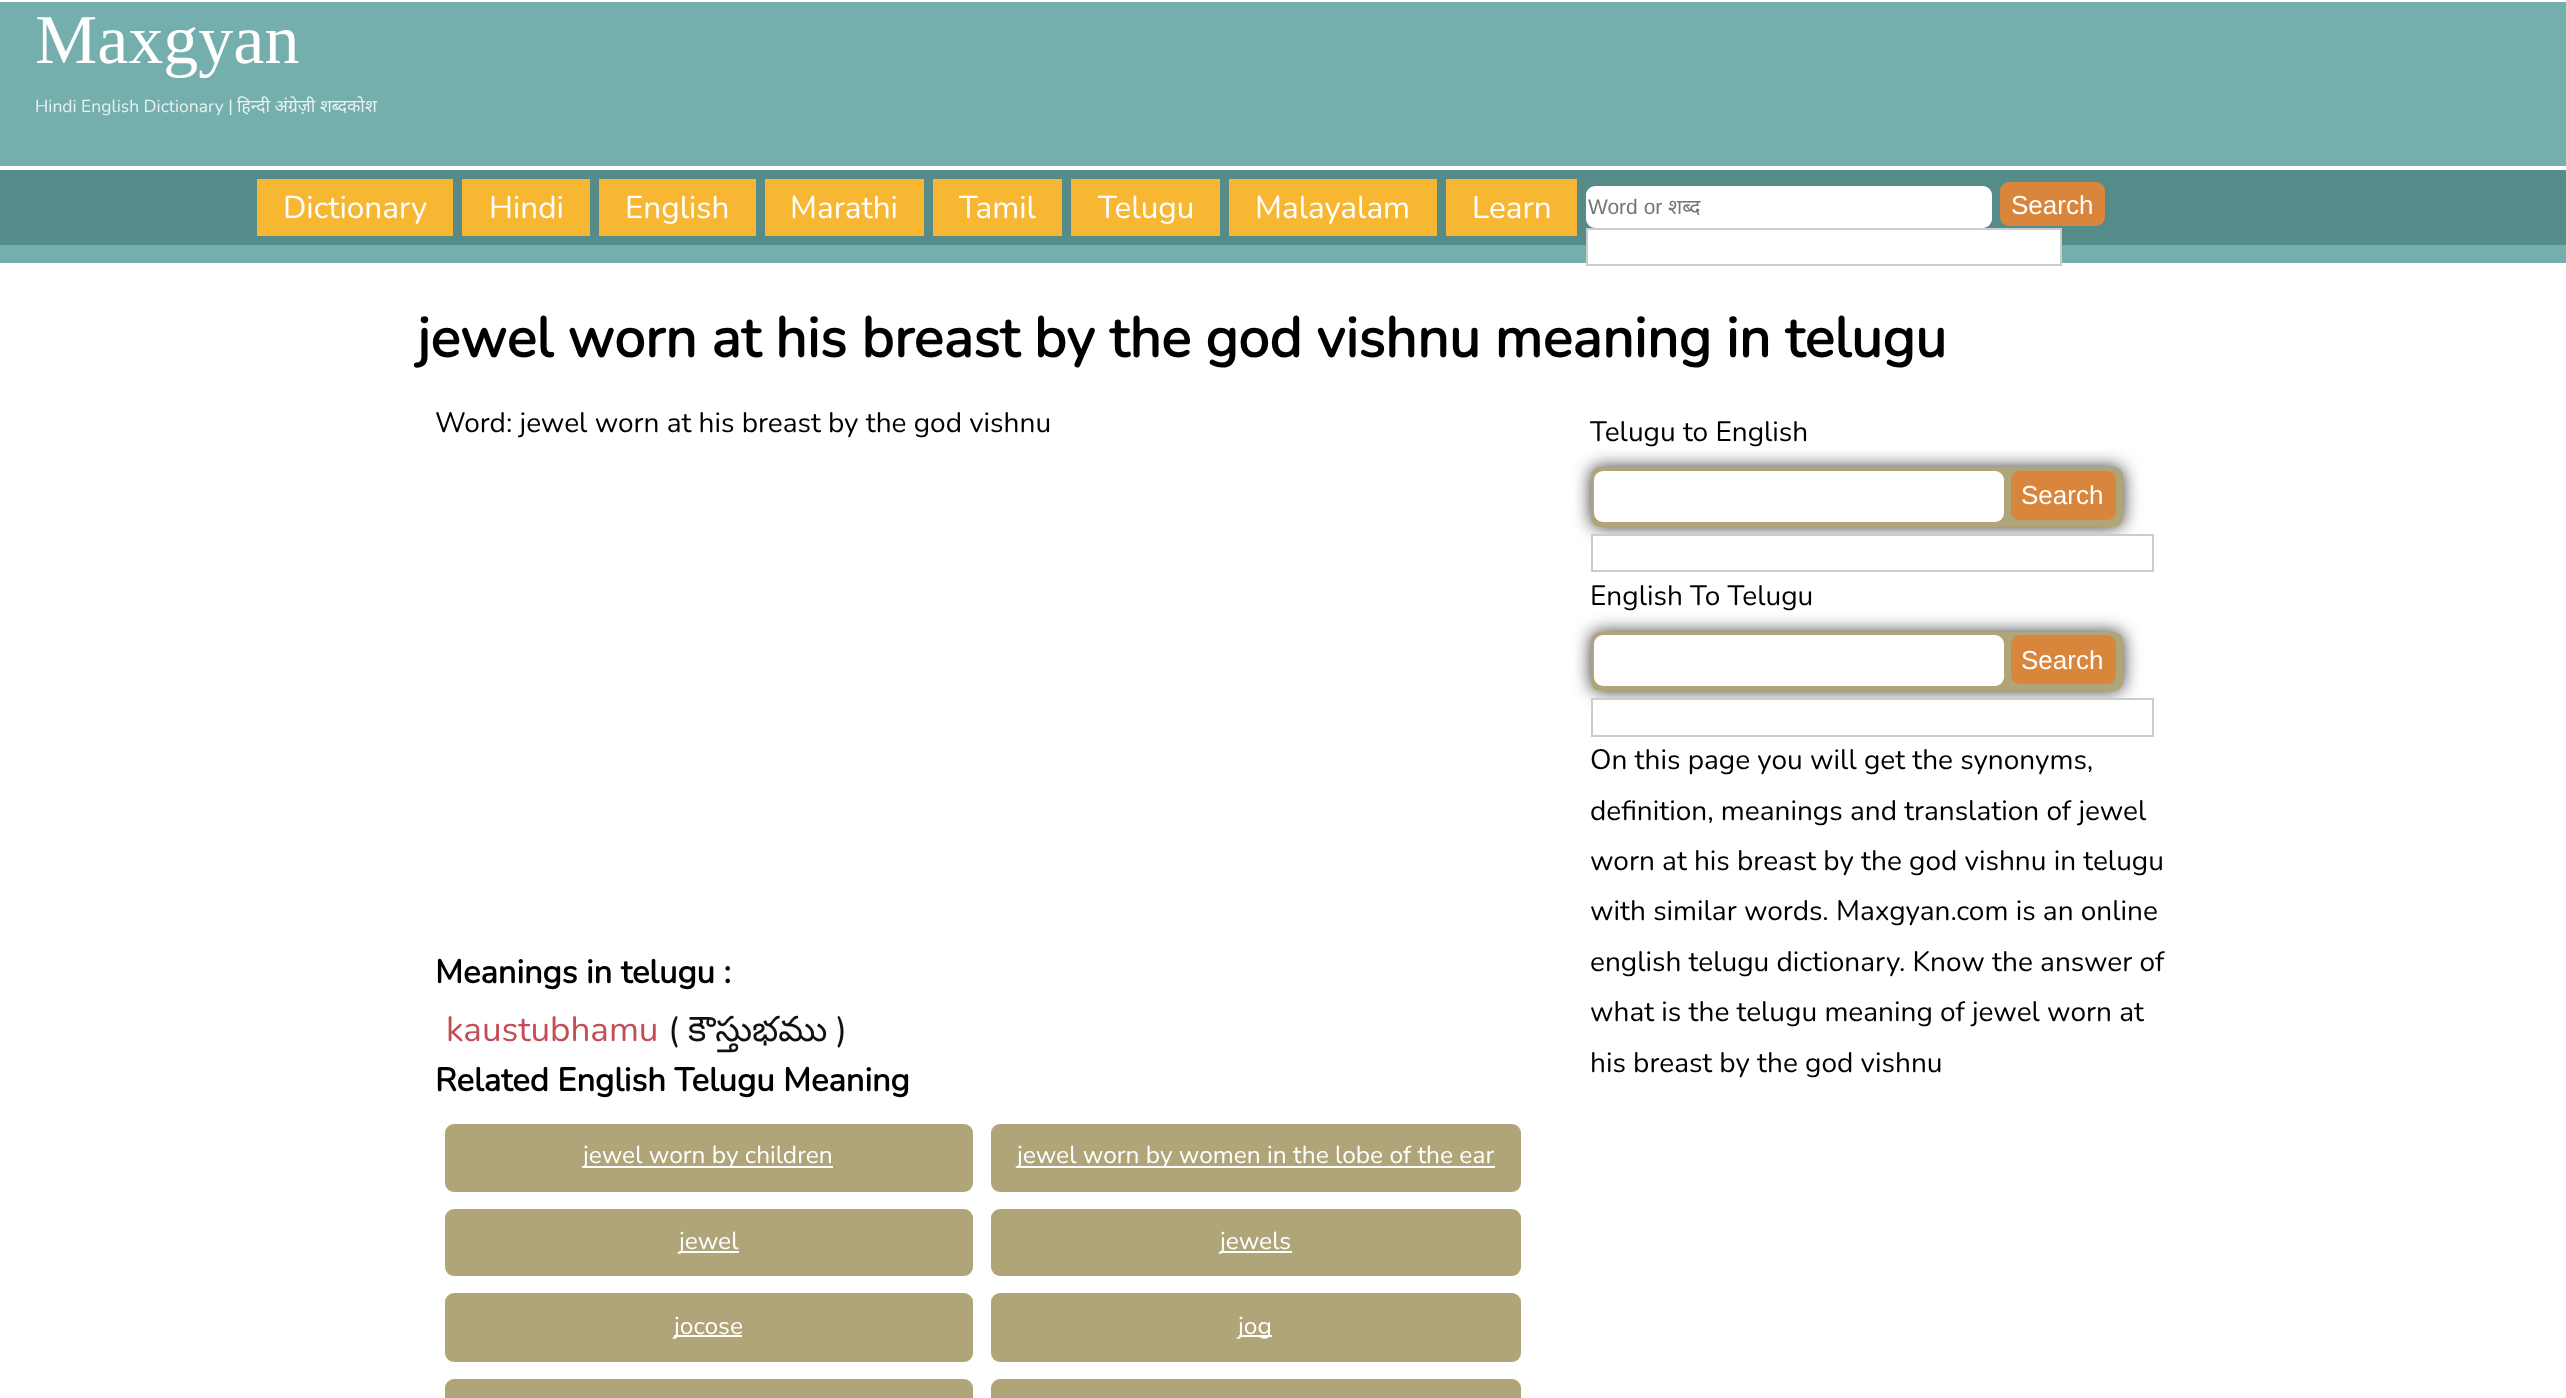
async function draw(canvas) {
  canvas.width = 2566
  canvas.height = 1398
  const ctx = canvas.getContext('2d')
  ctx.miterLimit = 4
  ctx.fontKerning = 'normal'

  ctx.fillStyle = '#fff'
  ctx.fillRect(0, 0, 2566, 1398)
  ctx.fillStyle = '#74afad'
  ctx.fillRect(0, 2, 2566, 261)
  ctx.font = '70px Liberation Serif'
  ctx.fillStyle = '#fff'
  ctx.fillText('Maxgyan', 35, 63)
  ctx.font = '200 17.5px Nunito'
  ctx.fillStyle = '#e7f1f1'
  ctx.fillText('Hindi English Dictionary |', 35, 112)
  ctx.font = '17.5px Noto Sans'
  ctx.fillText('हिन्दी अंग्रेज़ी शब्दकोश', 237, 112)
  ctx.fillStyle = '#558c89'
  ctx.fillRect(0, 170, 2566, 75)
  ctx.fillStyle = '#fff'
  ctx.fillRect(0, 166, 2566, 4)
  ctx.fillStyle = '#f7b733'
  ctx.fillRect(257, 179, 196, 57)
  ctx.font = '200 31.5px Nunito'
  ctx.fillStyle = '#fff'
  ctx.fillText('Dictionary', 283, 218)
  ctx.fillStyle = '#f7b733'
  ctx.fillRect(462, 179, 128, 57)
  ctx.fillStyle = '#fff'
  ctx.fillText('Hindi', 489, 218)
  ctx.fillStyle = '#f7b733'
  ctx.fillRect(599, 179, 157, 57)
  ctx.fillStyle = '#fff'
  ctx.fillText('English', 625, 218)
  ctx.fillStyle = '#f7b733'
  ctx.fillRect(765, 179, 159, 57)
  ctx.fillStyle = '#fff'
  ctx.fillText('Marathi', 790, 218)
  ctx.fillStyle = '#f7b733'
  ctx.fillRect(933, 179, 129, 57)
  ctx.fillStyle = '#fff'
  ctx.fillText('Tamil', 959, 218)
  ctx.fillStyle = '#f7b733'
  ctx.fillRect(1071, 179, 149, 57)
  ctx.fillStyle = '#fff'
  ctx.fillText('Telugu', 1098, 218)
  ctx.fillStyle = '#f7b733'
  ctx.fillRect(1229, 179, 208, 57)
  ctx.fillStyle = '#fff'
  ctx.fillText('Malayalam', 1255, 218)
  ctx.fillStyle = '#f7b733'
  ctx.fillRect(1446, 179, 131, 57)
  ctx.fillStyle = '#fff'
  ctx.fillText('Learn', 1472, 218)
  ctx.beginPath()
  ctx.roundRect(1586, 186, 406, 42, 9)
  ctx.fill()
  ctx.font = '21px Liberation Sans'
  ctx.fillStyle = '#757575'
  ctx.fillText('Word or', 1588, 214)
  ctx.font = '21px Noto Sans'
  ctx.fillText('शब्द', 1668, 214)
  ctx.fillStyle = '#d9853b'
  ctx.beginPath()
  ctx.roundRect(2000, 182, 105, 44, 9)
  ctx.fill()
  ctx.font = '26px Liberation Sans'
  ctx.fillStyle = '#fff'
  ctx.fillText('Search', 2011, 214)
  ctx.fillRect(1588, 230, 472, 33)
  ctx.strokeStyle = '#ccc'
  ctx.lineWidth = 2
  ctx.strokeRect(1587, 229, 474, 36)
  ctx.font = 'bold 56px Nunito'
  ctx.fillStyle = '#000'
  ctx.fillText('jewel worn at his breast by the god vishnu meaning in telugu', 417, 357)
  ctx.font = '200 28px Nunito'
  ctx.fillText('Word: jewel worn at his breast by the god vishnu', 435, 432)
  ctx.font = 'bold 32.75px Nunito'
  ctx.fillText('Meanings in telugu :', 435, 983)
  ctx.font = '200 35px Nunito'
  ctx.fillStyle = '#c44e55'
  ctx.fillText('kaustubhamu', 446, 1041)
  ctx.fillStyle = '#111'
  ctx.fillText('(', 668, 1041)
  ctx.font = '35px Noto Sans Telugu'
  ctx.fillText('కౌస్తుభము', 688, 1041)
  ctx.font = '200 35px Nunito'
  ctx.fillText(')', 836, 1041)
  ctx.font = 'bold 32.75px Nunito'
  ctx.fillStyle = '#000'
  ctx.fillText('Related English Telugu Meaning', 435, 1091)
  ctx.fillStyle = '#b0a479'
  ctx.beginPath()
  ctx.roundRect(445, 1124, 528, 68, 9)
  ctx.fill()
  ctx.fillStyle = '#fff'
  ctx.fillRect(583, 1166, 250, 2)
  ctx.font = '200 24.5px Nunito'
  ctx.fillText('jewel worn by children', 583, 1163)
  ctx.fillStyle = '#b0a479'
  ctx.beginPath()
  ctx.roundRect(991, 1124, 530, 68, 9)
  ctx.fill()
  ctx.fillStyle = '#fff'
  ctx.fillRect(1017, 1166, 478, 2)
  ctx.fillText('jewel worn by women in the lobe of the ear', 1017, 1163)
  ctx.fillStyle = '#b0a479'
  ctx.beginPath()
  ctx.roundRect(445, 1209, 528, 67, 9)
  ctx.fill()
  ctx.fillStyle = '#fff'
  ctx.fillRect(679, 1251, 60, 2)
  ctx.fillText('jewel', 679, 1249)
  ctx.fillStyle = '#b0a479'
  ctx.beginPath()
  ctx.roundRect(991, 1209, 530, 67, 9)
  ctx.fill()
  ctx.fillStyle = '#fff'
  ctx.fillRect(1220, 1251, 72, 2)
  ctx.fillText('jewels', 1220, 1249)
  ctx.fillStyle = '#b0a479'
  ctx.beginPath()
  ctx.roundRect(445, 1293, 528, 69, 9)
  ctx.fill()
  ctx.fillStyle = '#fff'
  ctx.fillRect(674, 1335, 68, 2)
  ctx.fillText('jocose', 674, 1334)
  ctx.fillStyle = '#b0a479'
  ctx.beginPath()
  ctx.roundRect(991, 1293, 530, 69, 9)
  ctx.fill()
  ctx.fillStyle = '#fff'
  ctx.fillRect(1239, 1335, 33, 2)
  ctx.fillText('jog', 1238, 1334)
  ctx.fillStyle = '#b0a479'
  ctx.beginPath()
  ctx.roundRect(445, 1379, 528, 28, 9)
  ctx.fill()
  ctx.beginPath()
  ctx.roundRect(991, 1379, 530, 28, 9)
  ctx.fill()
  ctx.fillStyle = '#333'
  ctx.filter = 'blur(9px)'
  ctx.beginPath()
  ctx.roundRect(1591, 467, 532, 60, 9)
  ctx.fill()
  ctx.filter = 'none'
  ctx.font = '200 28px Nunito'
  ctx.fillStyle = '#000'
  ctx.fillText('Telugu to English', 1590, 441)
  ctx.fillStyle = '#b0a479'
  ctx.beginPath()
  ctx.roundRect(1591, 467, 532, 60, 9)
  ctx.fill()
  ctx.fillStyle = '#fff'
  ctx.beginPath()
  ctx.roundRect(1594, 471, 410, 51, 9)
  ctx.fill()
  ctx.fillStyle = '#d9853b'
  ctx.beginPath()
  ctx.roundRect(2011, 471, 105, 49, 9)
  ctx.fill()
  ctx.font = '26px Liberation Sans'
  ctx.fillStyle = '#fff'
  ctx.fillText('Search', 2021, 504)
  ctx.fillRect(1593, 536, 540, 11)
  ctx.strokeRect(1592, 535, 561, 36)
  ctx.fillStyle = '#333'
  ctx.filter = 'blur(9px)'
  ctx.beginPath()
  ctx.roundRect(1591, 632, 532, 59, 9)
  ctx.fill()
  ctx.filter = 'none'
  ctx.font = '200 28px Nunito'
  ctx.fillStyle = '#000'
  ctx.fillText('English To Telugu', 1590, 605)
  ctx.fillStyle = '#b0a479'
  ctx.beginPath()
  ctx.roundRect(1591, 632, 532, 59, 9)
  ctx.fill()
  ctx.fillStyle = '#fff'
  ctx.beginPath()
  ctx.roundRect(1594, 635, 410, 51, 9)
  ctx.fill()
  ctx.fillStyle = '#d9853b'
  ctx.beginPath()
  ctx.roundRect(2011, 635, 105, 49, 9)
  ctx.fill()
  ctx.font = '26px Liberation Sans'
  ctx.fillStyle = '#fff'
  ctx.fillText('Search', 2021, 669)
  ctx.fillRect(1593, 700, 540, 11)
  ctx.strokeRect(1592, 699, 561, 37)
  ctx.font = '200 28px Nunito'
  ctx.fillStyle = '#000'
  ctx.fillText('On this page you will get the synonyms,', 1590, 769)
  ctx.fillText('definition, meanings and translation of jewel', 1590, 820)
  ctx.fillText('worn at his breast by the god vishnu in telugu', 1590, 870)
  ctx.fillText('with similar words. Maxgyan.com is an online', 1590, 920)
  ctx.fillText('english telugu dictionary. Know the answer of', 1590, 971)
  ctx.fillText('what is the telugu meaning of jewel worn at', 1590, 1021)
  ctx.fillText('his breast by the god vishnu', 1590, 1072)
}

draw(document.querySelector('canvas'))
